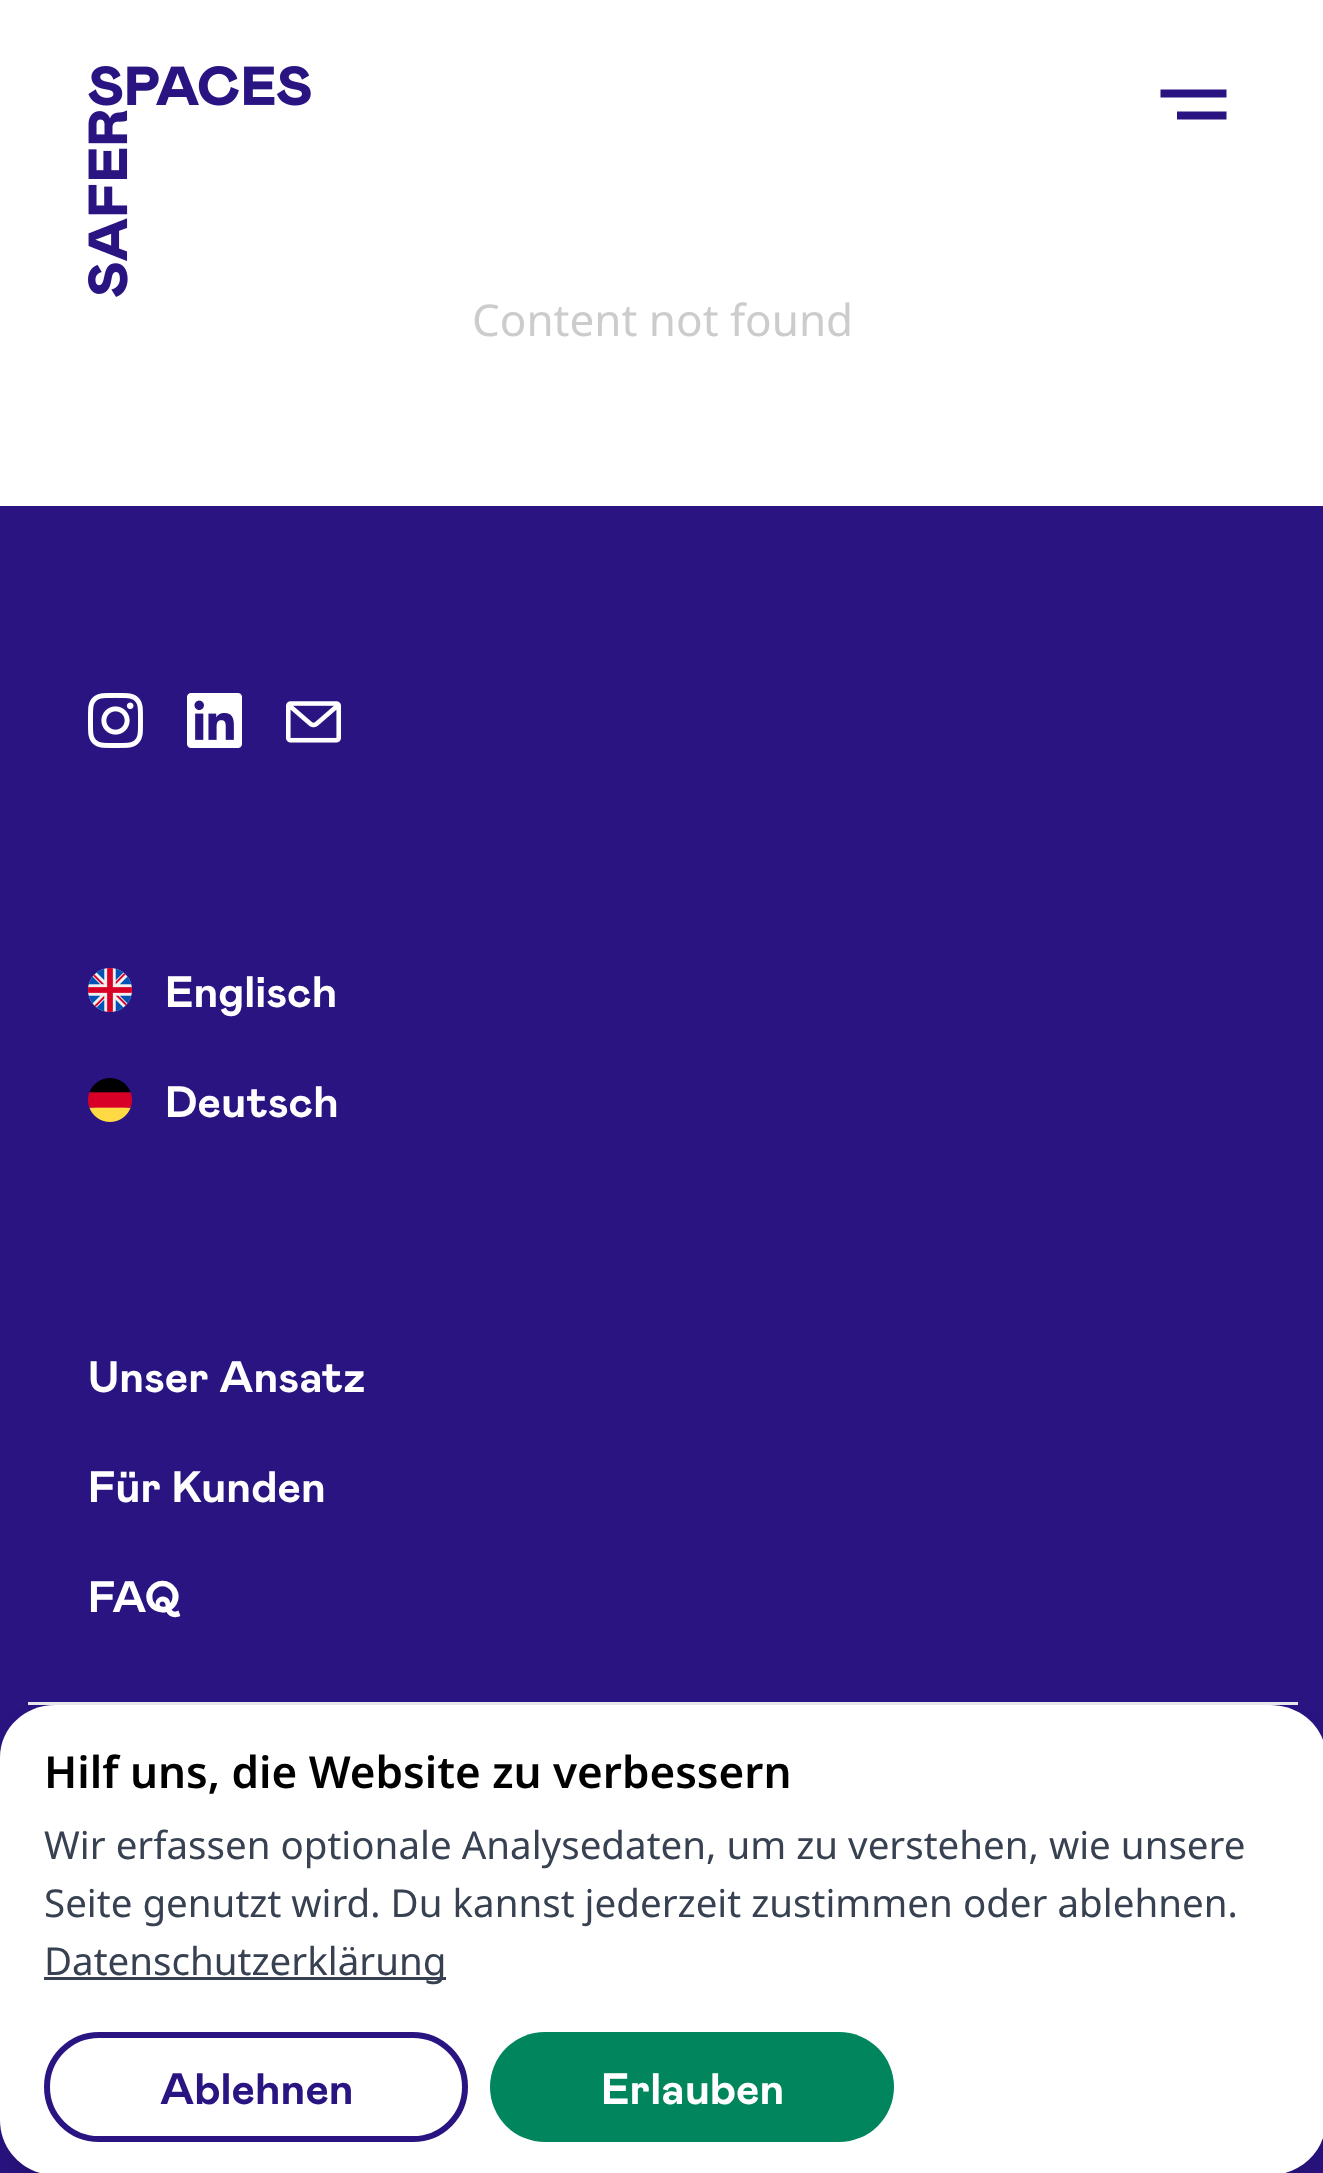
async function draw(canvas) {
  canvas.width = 1323
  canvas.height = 2173
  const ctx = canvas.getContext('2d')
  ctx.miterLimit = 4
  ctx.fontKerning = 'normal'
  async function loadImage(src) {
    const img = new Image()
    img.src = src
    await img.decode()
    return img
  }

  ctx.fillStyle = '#fff'
  ctx.fillRect(0, 0, 1323, 2173)
  ctx.drawImage(await loadImage('image0.png'), 88, 66, 223, 231)
  ctx.beginPath()
  ctx.moveTo(1160.5, 93.5)
  ctx.lineTo(1226.5, 93.5)
  ctx.strokeStyle = '#2a1482'
  ctx.lineWidth = 8.2
  ctx.stroke()
  ctx.beginPath()
  ctx.moveTo(1177, 115.5)
  ctx.lineTo(1226.5, 115.5)
  ctx.stroke()
  ctx.font = '44px Noto Sans'
  ctx.fillStyle = '#ccc'
  ctx.fillText('Content not found', 472, 336)
  ctx.fillStyle = '#2a1482'
  ctx.fillRect(0, 506, 1323, 1667)
  ctx.drawImage(await loadImage('image1.png'), 88, 693, 55, 55)
  ctx.drawImage(await loadImage('image2.png'), 187, 693, 55, 55)
  ctx.drawImage(await loadImage('image3.png'), 286, 701, 55, 42)
  ctx.drawImage(await loadImage('image4.png'), 88, 968, 44, 44)
  ctx.font = 'bold 44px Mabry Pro'
  ctx.fillStyle = '#fff'
  ctx.fillText('Englisch', 165, 1007)
  ctx.drawImage(await loadImage('image5.png'), 88, 1078, 44, 44)
  ctx.fillText('Deutsch', 165, 1117)
  ctx.fillText('Unser Ansatz', 88, 1392)
  ctx.fillText('Für Kunden', 88, 1502)
  ctx.fillText('FAQ', 88, 1612)
  ctx.fillStyle = '#0000001a'
  ctx.filter = 'blur(8px)'
  ctx.beginPath()
  ctx.roundRect(11, 1724, 1304, 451, 44)
  ctx.fill()
  ctx.filter = 'none'
  ctx.filter = 'blur(20.5px)'
  ctx.beginPath()
  ctx.roundRect(8, 1738, 1309, 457, 47)
  ctx.fill()
  ctx.filter = 'none'
  ctx.fillStyle = '#fff'
  ctx.beginPath()
  ctx.moveTo(55, 1705)
  ctx.lineTo(1270, 1705)
  ctx.bezierCurveTo(1301, 1705, 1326, 1728, 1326, 1757)
  ctx.lineTo(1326, 2120)
  ctx.bezierCurveTo(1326, 2151, 1301, 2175, 1270, 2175)
  ctx.lineTo(55, 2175)
  ctx.bezierCurveTo(25, 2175, 0, 2151, 0, 2120)
  ctx.lineTo(0, 1757)
  ctx.bezierCurveTo(0, 1728, 25, 1705, 55, 1705)
  ctx.closePath()
  ctx.fill()
  ctx.fillStyle = '#e5e7eb'
  ctx.fillRect(28, 1702, 1270, 3)
  ctx.font = '600 44px Noto Sans'
  ctx.fillStyle = '#000'
  ctx.fillText('Hilf uns, die Website zu verbessern', 44, 1788)
  ctx.font = '38.5px Noto Sans'
  ctx.fillStyle = '#374151'
  ctx.fillText('Wir erfassen optionale Analysedaten, um zu verstehen, wie unsere', 44, 1859)
  ctx.fillText('Seite genutzt wird. Du kannst jederzeit zustimmen oder ablehnen.', 44, 1917)
  ctx.fillRect(44, 1977, 402, 3)
  ctx.fillText('Datenschutzerklärung', 44, 1975)
  ctx.beginPath()
  ctx.roundRect(47, 2035, 418, 104, 52)
  ctx.lineWidth = 6
  ctx.stroke()
  ctx.font = 'bold 44px Mabry Pro'
  ctx.fillStyle = '#2a1482'
  ctx.fillText('Ablehnen', 160, 2104)
  ctx.fillStyle = '#00855d'
  ctx.beginPath()
  ctx.roundRect(490, 2032, 404, 110, 55)
  ctx.fill()
  ctx.fillStyle = '#fff'
  ctx.fillText('Erlauben', 601, 2104)
}

draw(document.querySelector('canvas'))
